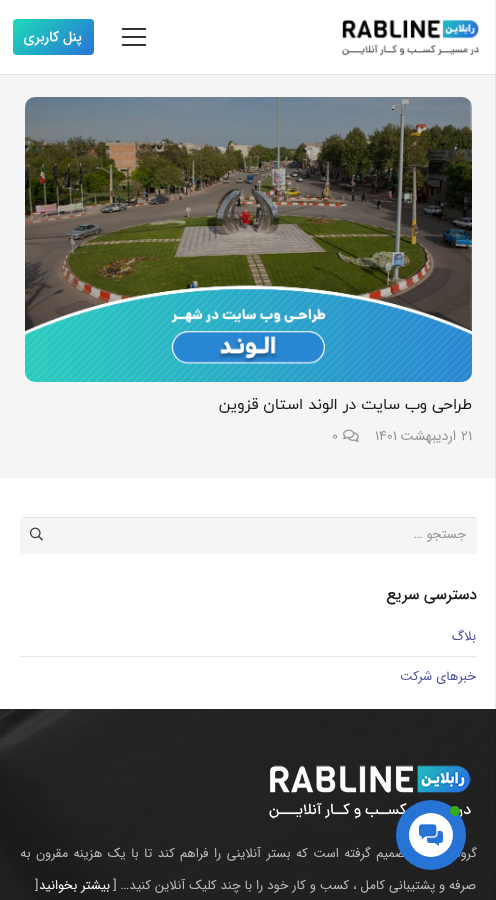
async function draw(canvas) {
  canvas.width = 496
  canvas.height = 900
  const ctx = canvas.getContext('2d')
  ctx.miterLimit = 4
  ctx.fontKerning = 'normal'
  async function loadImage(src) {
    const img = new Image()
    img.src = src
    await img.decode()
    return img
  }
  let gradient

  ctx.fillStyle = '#fff'
  ctx.fillRect(0, 0, 496, 900)
  ctx.fillStyle = '#e1e1e1'
  ctx.fillRect(0, 74, 496, 1)
  ctx.drawImage(await loadImage('image0.png'), 341, 19, 139, 37)
  ctx.fillStyle = '#f5f5f5'
  ctx.fillRect(0, 75, 496, 403)
  ctx.drawImage(await loadImage('image5.png'), 0, 709, 496, 191)
  ctx.fillStyle = '#00000014'
  ctx.fillRect(495, 0, 1, 900)
  ctx.fillStyle = '#333'
  ctx.fillRect(122, 36, 24, 2)
  ctx.fillRect(122, 28, 24, 2)
  ctx.fillRect(122, 44, 24, 2)
  gradient = ctx.createLinearGradient(24, 7.8, 83, 66)
  gradient.addColorStop(0, '#1ddab8')
  gradient.addColorStop(1, '#2974d7')
  ctx.fillStyle = gradient
  ctx.beginPath()
  ctx.roundRect(13, 19, 81, 36, 4)
  ctx.fill()
  ctx.direction = 'rtl'
  ctx.font = '500 14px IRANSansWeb'
  ctx.fillStyle = '#fff'
  ctx.fillText('پنل کاربری', 82, 41)
  ctx.drawImage(await loadImage('image1.png'), 25, 97, 447, 285)
  ctx.font = '15.6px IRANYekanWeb'
  ctx.fillStyle = '#1a1a1a'
  ctx.fillText('طراحی وب سایت در الوند استان قزوین', 472, 409)
  ctx.direction = 'ltr'
  ctx.font = '14px IRANSansWeb'
  ctx.fillStyle = '#949494'
  ctx.fillText('۲۱', 461, 440)
  ctx.direction = 'rtl'
  ctx.fillText('اردیبهشت', 456, 440)
  ctx.direction = 'ltr'
  ctx.fillText('۱۴۰۱', 375, 440)
  ctx.drawImage(await loadImage('image2.png'), 343, 429, 16, 13)
  ctx.fillText('۰', 332, 440)
  ctx.fillStyle = '#f5f5f5'
  ctx.beginPath()
  ctx.roundRect(20, 517, 457, 37, 4)
  ctx.fill()
  ctx.fillStyle = '#00000014'
  ctx.beginPath()
  ctx.moveTo(24, 518)
  ctx.lineTo(473, 518)
  ctx.bezierCurveTo(475, 518, 477, 520, 477, 522)
  ctx.bezierCurveTo(477, 519, 476, 517, 473, 517)
  ctx.lineTo(24, 517)
  ctx.lineTo(22, 518)
  ctx.lineTo(21, 519)
  ctx.lineTo(20, 522)
  ctx.bezierCurveTo(20, 520, 22, 518, 24, 518)
  ctx.closePath()
  ctx.fill()
  ctx.direction = 'rtl'
  ctx.font = '13px IRANSansWeb'
  ctx.fillStyle = '#949494'
  ctx.fillText('جستجو …', 466, 538)
  ctx.drawImage(await loadImage('image3.png'), 30, 527, 13, 14)
  ctx.font = '500 15.6px IRANSansWeb'
  ctx.fillStyle = '#1a1a1a'
  ctx.fillText('دسترسی سریع', 477, 599)
  ctx.font = '13px IRANSansWeb'
  ctx.fillStyle = '#49509c'
  ctx.fillText('بلاگ', 476, 640)
  ctx.fillStyle = '#e8e8e8'
  ctx.fillRect(20, 656, 457, 1)
  ctx.fillStyle = '#49509c'
  ctx.fillText('خبرهای شرکت', 476, 680)
  ctx.drawImage(await loadImage('image6.png'), 269, 765, 202, 54)
  ctx.wordSpacing = '1.5px'
  ctx.fillStyle = '#bbb'
  ctx.fillText('گروه رابلاین تصمیم گرفته است که بستر آنلاینی را فراهم کند تا با یک هزینه مقرون به', 477, 857)
  ctx.fillStyle = '#2873d6'
  ctx.beginPath()
  ctx.arc(431, 835, 35, 0, 2 * Math.PI)
  ctx.fill()
  ctx.fillStyle = '#fff'
  ctx.beginPath()
  ctx.arc(431, 835, 22, 0, 2 * Math.PI)
  ctx.fill()
  ctx.fillStyle = '#35ac19'
  ctx.beginPath()
  ctx.arc(455, 811, 5, 0, 2 * Math.PI)
  ctx.fill()
  ctx.drawImage(await loadImage('image4.png'), 419, 824, 24, 22)
  ctx.wordSpacing = '0px'
  ctx.fillStyle = '#bbb'
  ctx.fillText('صرفه و پشتیبانی کامل ، کسب و کار خود را با چند کلیک آنلاین کنید… [', 476, 889)
  ctx.fillStyle = '#fff'
  ctx.fillText('بیشتر بخوانید', 110, 889)
  ctx.direction = 'ltr'
  ctx.fillStyle = '#bbb'
  ctx.fillText(']', 35, 889)
}

draw(document.querySelector('canvas'))
